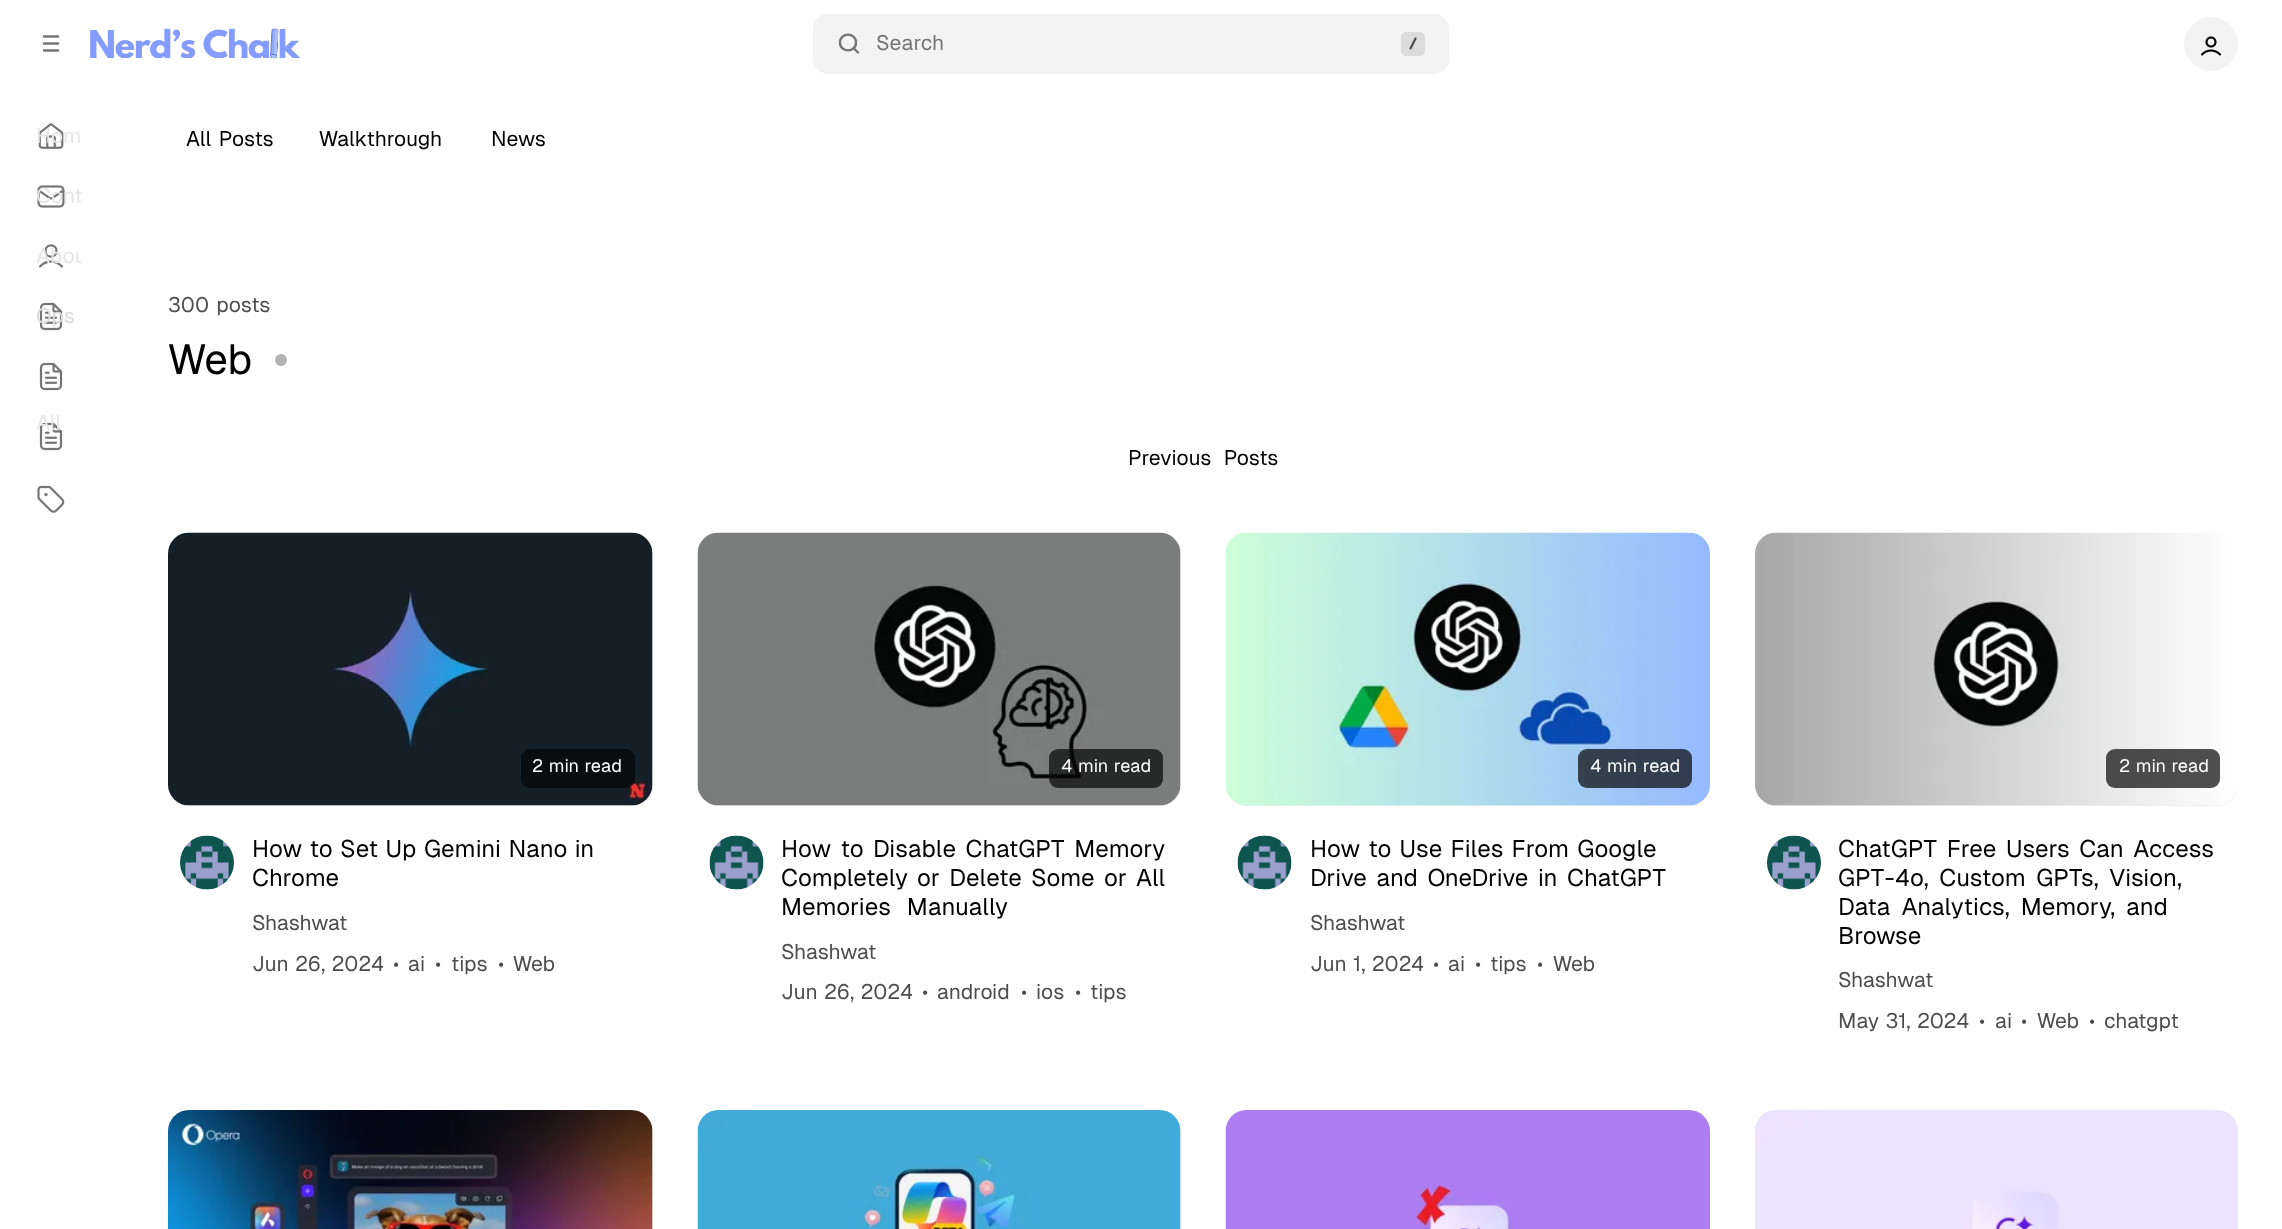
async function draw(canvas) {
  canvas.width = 2282
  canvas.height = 1229
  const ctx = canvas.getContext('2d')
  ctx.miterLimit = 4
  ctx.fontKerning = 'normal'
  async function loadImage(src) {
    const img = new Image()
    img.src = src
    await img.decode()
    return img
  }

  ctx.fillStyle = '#fff'
  ctx.fillRect(0, 0, 2282, 1229)
  ctx.beginPath()
  ctx.moveTo(44, 43.5)
  ctx.lineTo(58, 43.5)
  ctx.moveTo(44, 36.5)
  ctx.lineTo(58, 36.5)
  ctx.moveTo(44, 50.5)
  ctx.lineTo(58, 50.5)
  ctx.strokeStyle = '#757575'
  ctx.lineWidth = 2.4
  ctx.lineCap = 'round'
  ctx.lineJoin = 'round'
  ctx.stroke()
  ctx.drawImage(await loadImage('image0.png'), 90, 28, 210, 31)
  ctx.fillStyle = '#f3f3f3'
  ctx.beginPath()
  ctx.roundRect(813, 14, 636, 60, 15)
  ctx.fill()
  ctx.beginPath()
  ctx.moveTo(858, 52.5)
  ctx.lineTo(853.5, 48)
  ctx.moveTo(856, 42.5)
  ctx.bezierCurveTo(856, 53, 840, 53, 840, 42.5)
  ctx.bezierCurveTo(840, 32, 856, 32, 856, 42.5)
  ctx.closePath()
  ctx.stroke()
  ctx.font = '21px Geist'
  ctx.fillStyle = '#757575'
  ctx.fillText('Search', 876, 50)
  ctx.fillStyle = '#dcdcdc'
  ctx.beginPath()
  ctx.roundRect(1401, 32, 24, 24, 5)
  ctx.fill()
  ctx.beginPath()
  ctx.moveTo(1410.5, 48.5)
  ctx.lineTo(1415.5, 38.5)
  ctx.strokeStyle = '#4d4d4d'
  ctx.lineWidth = 2.2
  ctx.stroke()
  ctx.fillStyle = '#f3f3f3'
  ctx.beginPath()
  ctx.arc(2211, 44, 27, 0, 2 * Math.PI)
  ctx.fill()
  ctx.drawImage(await loadImage('image1.png'), 2201, 36, 20, 20)
  ctx.drawImage(await loadImage('image2.png'), 38, 123, 26, 26)
  ctx.fillStyle = '#e6e6e6'
  ctx.fillText('Hom', 36, 143)
  ctx.drawImage(await loadImage('image3.png'), 37, 185, 28, 23)
  ctx.save()
  ctx.beginPath()
  ctx.roundRect(21, 168, 60, 57, 12)
  ctx.clip()
  ctx.fillText('Cont', 36, 203)
  ctx.restore()
  ctx.beginPath()
  ctx.moveTo(40, 266.5)
  ctx.bezierCurveTo(46, 260, 56, 260, 62, 266.5)
  ctx.moveTo(56.5, 251)
  ctx.bezierCurveTo(56.5, 258.5, 45.5, 258.5, 45.5, 251)
  ctx.bezierCurveTo(45.5, 243.5, 56.5, 243.5, 56.5, 251)
  ctx.closePath()
  ctx.strokeStyle = '#757575'
  ctx.stroke()
  ctx.save()
  ctx.beginPath()
  ctx.roundRect(21, 228, 60, 57, 12)
  ctx.clip()
  ctx.fillText('Abou', 36, 263)
  ctx.restore()
  ctx.drawImage(await loadImage('image4.png'), 39, 302, 24, 29)
  ctx.wordSpacing = '1px'
  ctx.fillStyle = '#dbdbdb'
  ctx.fillText('Ops', 36, 323)
  ctx.drawImage(await loadImage('image4.png'), 39, 362, 24, 29)
  ctx.drawImage(await loadImage('image4.png'), 39, 422, 24, 29)
  ctx.wordSpacing = '0px'
  ctx.fillStyle = '#e6e6e6'
  ctx.fillText('All', 36, 430)
  ctx.drawImage(await loadImage('image5.png'), 37, 485, 28, 28)
  ctx.wordSpacing = '2px'
  ctx.fillStyle = '#000'
  ctx.fillText('All Posts', 186, 146)
  ctx.wordSpacing = '0px'
  ctx.fillText('Walkthrough', 319, 146)
  ctx.fillText('News', 491, 146)
  ctx.wordSpacing = '2px'
  ctx.fillStyle = '#4d4d4d'
  ctx.fillText('300 posts', 168, 312)
  ctx.wordSpacing = '0px'
  ctx.font = '42px Geist'
  ctx.fillStyle = '#000'
  ctx.fillText('Web', 168, 374)
  ctx.fillStyle = '#b2b2b2'
  ctx.beginPath()
  ctx.arc(281, 360, 6, 0, 2 * Math.PI)
  ctx.fill()
  ctx.wordSpacing = '7px'
  ctx.font = '21px Geist'
  ctx.fillStyle = '#000'
  ctx.fillText('Previous Posts', 1128, 465)
  ctx.fillStyle = '#ededed'
  ctx.beginPath()
  ctx.roundRect(168, 533, 485, 273, 21)
  ctx.fill()
  ctx.drawImage(await loadImage('image6.png'), 168, 532, 485, 274)
  ctx.fillStyle = '#050505b3'
  ctx.beginPath()
  ctx.roundRect(521, 749, 114, 39, 9)
  ctx.fill()
  ctx.wordSpacing = '1px'
  ctx.font = '18px Geist'
  ctx.fillStyle = '#fff'
  ctx.fillText('2 min read', 532, 772)
  ctx.wordSpacing = '1.5px'
  ctx.font = '24px Geist'
  ctx.fillStyle = '#000'
  ctx.fillText('How to Set Up Gemini Nano in', 252, 857)
  ctx.wordSpacing = '0px'
  ctx.fillText('Chrome', 252, 886)
  ctx.fillStyle = '#f3f3f3'
  ctx.beginPath()
  ctx.arc(207, 863, 27, 0, 2 * Math.PI)
  ctx.fill()
  ctx.drawImage(await loadImage('image7.png'), 180, 835, 54, 55)
  ctx.font = '21px Geist'
  ctx.fillStyle = '#4d4d4d'
  ctx.fillText('Shashwat', 252, 930)
  ctx.wordSpacing = '1px'
  ctx.fillText('Jun 26, 2024', 252, 971)
  ctx.wordSpacing = '0px'
  ctx.fillText('•', 393, 971)
  ctx.fillText('ai', 408, 971)
  ctx.fillText('•', 435, 971)
  ctx.fillText('tips', 451, 971)
  ctx.fillText('•', 498, 971)
  ctx.fillText('Web', 513, 971)
  ctx.fillStyle = '#ededed'
  ctx.beginPath()
  ctx.roundRect(698, 533, 483, 273, 21)
  ctx.fill()
  ctx.drawImage(await loadImage('image8.png'), 697, 532, 484, 274)
  ctx.fillStyle = '#050505b3'
  ctx.beginPath()
  ctx.roundRect(1049, 749, 114, 39, 9)
  ctx.fill()
  ctx.wordSpacing = '1px'
  ctx.font = '18px Geist'
  ctx.fillStyle = '#fff'
  ctx.fillText('4 min read', 1061, 772)
  ctx.wordSpacing = '3.5px'
  ctx.font = '24px Geist'
  ctx.fillStyle = '#000'
  ctx.fillText('How to Disable ChatGPT Memory', 781, 857)
  ctx.wordSpacing = '3.25px'
  ctx.fillText('Completely or Delete Some or All', 781, 886)
  ctx.wordSpacing = '10px'
  ctx.fillText('Memories Manually', 781, 915)
  ctx.fillStyle = '#f3f3f3'
  ctx.beginPath()
  ctx.arc(737, 863, 27, 0, 2 * Math.PI)
  ctx.fill()
  ctx.drawImage(await loadImage('image9.png'), 709, 835, 55, 55)
  ctx.wordSpacing = '0px'
  ctx.font = '21px Geist'
  ctx.fillStyle = '#4d4d4d'
  ctx.fillText('Shashwat', 781, 959)
  ctx.wordSpacing = '1px'
  ctx.fillText('Jun 26, 2024', 781, 999)
  ctx.wordSpacing = '0px'
  ctx.fillText('•', 922, 999)
  ctx.fillText('android', 937, 999)
  ctx.fillText('•', 1021, 999)
  ctx.fillText('ios', 1036, 999)
  ctx.fillText('•', 1075, 999)
  ctx.fillText('tips', 1090, 999)
  ctx.fillStyle = '#ededed'
  ctx.beginPath()
  ctx.roundRect(1226, 533, 484, 273, 21)
  ctx.fill()
  ctx.drawImage(await loadImage('image10.png'), 1225, 532, 485, 274)
  ctx.fillStyle = '#050505b3'
  ctx.beginPath()
  ctx.roundRect(1578, 749, 114, 39, 9)
  ctx.fill()
  ctx.wordSpacing = '1px'
  ctx.font = '18px Geist'
  ctx.fillStyle = '#fff'
  ctx.fillText('4 min read', 1590, 772)
  ctx.wordSpacing = '2.25px'
  ctx.font = '24px Geist'
  ctx.fillStyle = '#000'
  ctx.fillText('How to Use Files From Google', 1310, 857)
  ctx.wordSpacing = '3.5px'
  ctx.fillText('Drive and OneDrive in ChatGPT', 1310, 886)
  ctx.fillStyle = '#f3f3f3'
  ctx.beginPath()
  ctx.arc(1265, 863, 27, 0, 2 * Math.PI)
  ctx.fill()
  ctx.drawImage(await loadImage('image11.png'), 1237, 835, 55, 55)
  ctx.wordSpacing = '0px'
  ctx.font = '21px Geist'
  ctx.fillStyle = '#4d4d4d'
  ctx.fillText('Shashwat', 1310, 930)
  ctx.wordSpacing = '1px'
  ctx.fillText('Jun 1, 2024', 1310, 971)
  ctx.wordSpacing = '0px'
  ctx.fillText('•', 1433, 971)
  ctx.fillText('ai', 1448, 971)
  ctx.fillText('•', 1475, 971)
  ctx.fillText('tips', 1490, 971)
  ctx.fillText('•', 1537, 971)
  ctx.fillText('Web', 1553, 971)
  ctx.fillStyle = '#ededed'
  ctx.beginPath()
  ctx.roundRect(1755, 533, 483, 273, 21)
  ctx.fill()
  ctx.drawImage(await loadImage('image12.png'), 1755, 532, 483, 274)
  ctx.fillStyle = '#050505b3'
  ctx.beginPath()
  ctx.roundRect(2106, 749, 114, 39, 9)
  ctx.fill()
  ctx.wordSpacing = '1px'
  ctx.font = '18px Geist'
  ctx.fillStyle = '#fff'
  ctx.fillText('2 min read', 2119, 772)
  ctx.wordSpacing = '3.5px'
  ctx.font = '24px Geist'
  ctx.fillStyle = '#000'
  ctx.fillText('ChatGPT Free Users Can Access', 1838, 857)
  ctx.wordSpacing = '4.5px'
  ctx.fillText('GPT-4o, Custom GPTs, Vision,', 1838, 886)
  ctx.wordSpacing = '5px'
  ctx.fillText('Data Analytics, Memory, and', 1838, 915)
  ctx.wordSpacing = '0px'
  ctx.fillText('Browse', 1838, 944)
  ctx.fillStyle = '#f3f3f3'
  ctx.beginPath()
  ctx.arc(1794, 863, 27, 0, 2 * Math.PI)
  ctx.fill()
  ctx.drawImage(await loadImage('image13.png'), 1767, 835, 54, 55)
  ctx.font = '21px Geist'
  ctx.fillStyle = '#4d4d4d'
  ctx.fillText('Shashwat', 1838, 987)
  ctx.wordSpacing = '1px'
  ctx.fillText('May 31, 2024', 1838, 1028)
  ctx.wordSpacing = '0px'
  ctx.fillText('•', 1979, 1028)
  ctx.fillText('ai', 1995, 1028)
  ctx.fillText('•', 2021, 1028)
  ctx.fillText('Web', 2037, 1028)
  ctx.fillText('•', 2089, 1028)
  ctx.fillText('chatgpt', 2104, 1028)
  ctx.fillStyle = '#ededed'
  ctx.beginPath()
  ctx.roundRect(168, 1110, 485, 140, 21)
  ctx.fill()
  ctx.drawImage(await loadImage('image14.png'), 168, 1110, 485, 119)
  ctx.beginPath()
  ctx.roundRect(698, 1110, 483, 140, 21)
  ctx.fill()
  ctx.drawImage(await loadImage('image15.png'), 697, 1110, 484, 119)
  ctx.beginPath()
  ctx.roundRect(1226, 1110, 484, 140, 21)
  ctx.fill()
  ctx.drawImage(await loadImage('image16.png'), 1225, 1110, 485, 119)
  ctx.beginPath()
  ctx.roundRect(1755, 1110, 483, 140, 21)
  ctx.fill()
  ctx.drawImage(await loadImage('image17.png'), 1755, 1110, 483, 119)
}

draw(document.querySelector('canvas'))
